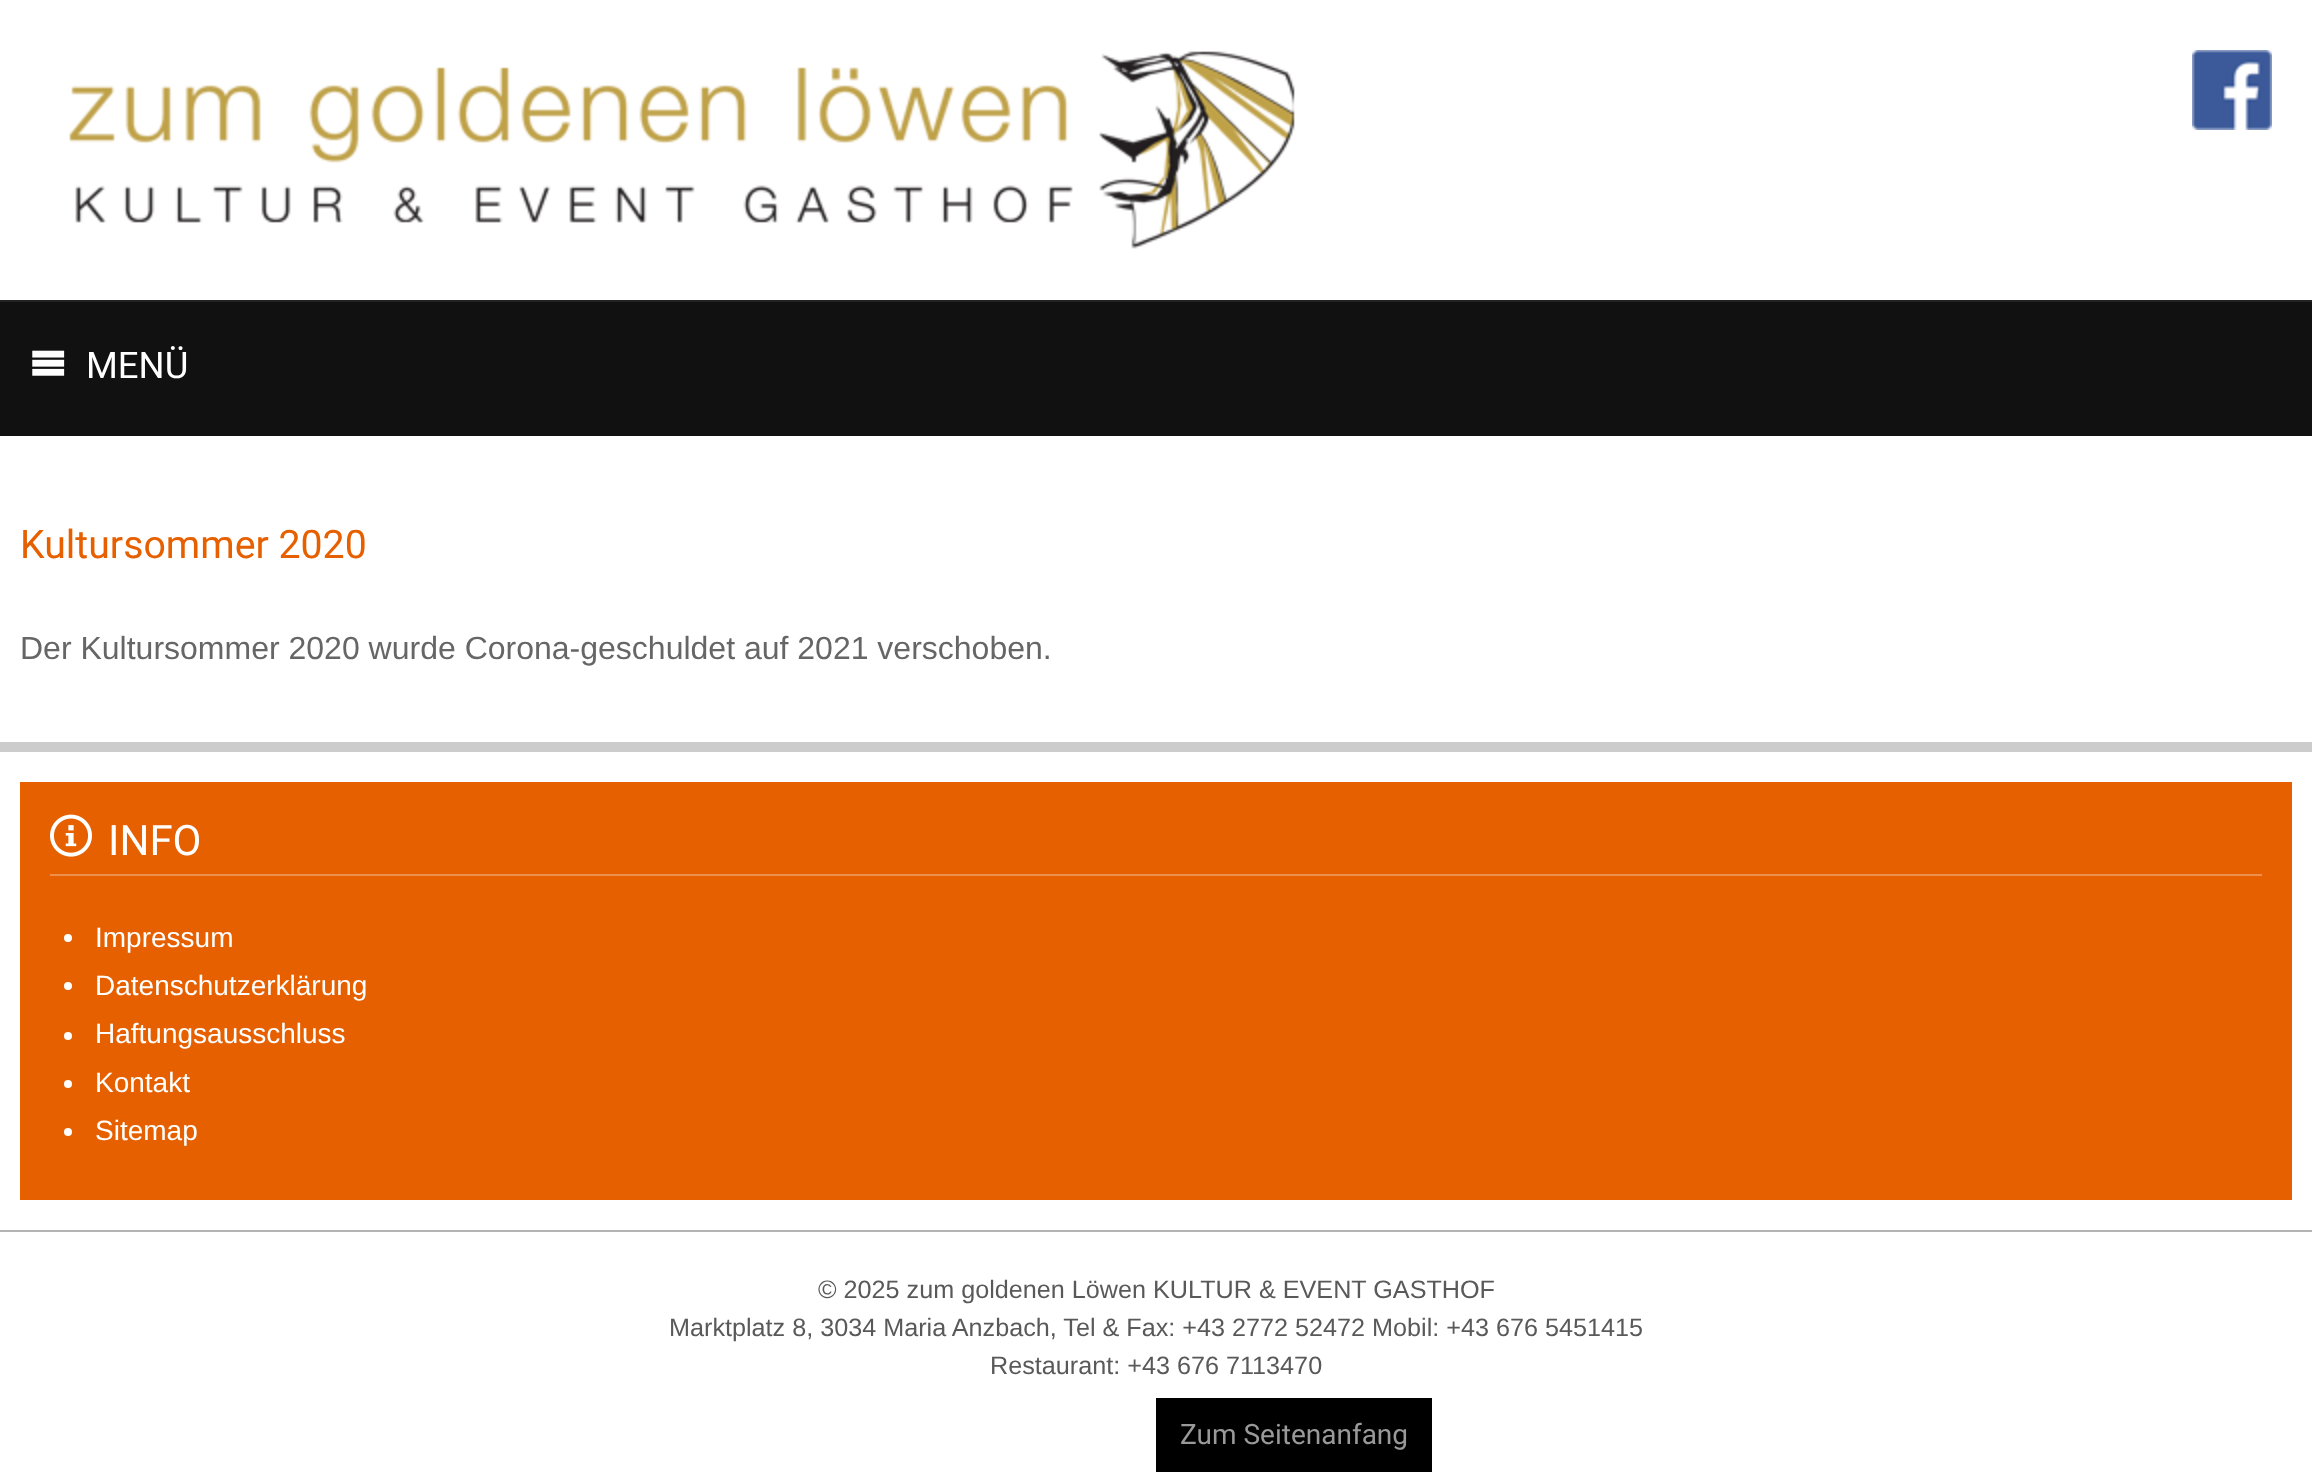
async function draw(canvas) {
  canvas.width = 2312
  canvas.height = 1472
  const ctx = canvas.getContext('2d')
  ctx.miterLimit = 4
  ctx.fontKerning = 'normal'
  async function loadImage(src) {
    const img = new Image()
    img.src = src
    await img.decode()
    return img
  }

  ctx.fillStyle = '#fff'
  ctx.fillRect(0, 0, 2312, 1472)
  ctx.drawImage(await loadImage('image0.png'), 69, 51, 1226, 198)
  ctx.drawImage(await loadImage('image1.png'), 2192, 50, 80, 80)
  ctx.fillStyle = '#111'
  ctx.fillRect(0, 302, 2312, 134)
  ctx.fillStyle = '#222'
  ctx.fillRect(0, 300, 2312, 2)
  ctx.drawImage(await loadImage('image2.png'), 32, 350, 33, 26)
  ctx.font = '36.5px Roboto'
  ctx.fillStyle = '#fff'
  ctx.fillText('MENÜ', 86, 378)
  ctx.fillStyle = '#ccc'
  ctx.fillRect(0, 742, 2312, 10)
  ctx.font = '39.25px Roboto'
  ctx.fillStyle = '#e66000'
  ctx.fillText('Kultursommer 2020', 20, 558)
  ctx.font = '32px Liberation Sans'
  ctx.fillStyle = '#666'
  ctx.fillText('Der Kultursommer 2020 wurde Corona-geschuldet auf 2021 verschoben.', 20, 659)
  ctx.fillStyle = '#e66000'
  ctx.fillRect(20, 782, 2272, 418)
  ctx.fillStyle = '#ee904d'
  ctx.fillRect(50, 874, 2212, 2)
  ctx.drawImage(await loadImage('image3.png'), 50, 814, 42, 43)
  ctx.font = '42px Roboto'
  ctx.fillStyle = '#fff'
  ctx.fillText('INFO', 108, 855)
  ctx.beginPath()
  ctx.arc(68, 938, 4, 0, 2 * Math.PI)
  ctx.fill()
  ctx.font = '28px Liberation Sans'
  ctx.fillText('Impressum', 95, 947)
  ctx.beginPath()
  ctx.arc(68, 986, 4, 0, 2 * Math.PI)
  ctx.fill()
  ctx.fillText('Datenschutzerklärung', 95, 995)
  ctx.beginPath()
  ctx.arc(68, 1036, 4, 0, 2 * Math.PI)
  ctx.fill()
  ctx.fillText('Haftungsausschluss', 95, 1043)
  ctx.beginPath()
  ctx.arc(68, 1084, 4, 0, 2 * Math.PI)
  ctx.fill()
  ctx.fillText('Kontakt', 95, 1092)
  ctx.beginPath()
  ctx.arc(68, 1132, 4, 0, 2 * Math.PI)
  ctx.fill()
  ctx.fillText('Sitemap', 95, 1140)
  ctx.fillStyle = '#b3b3b3'
  ctx.fillRect(0, 1230, 2312, 2)
  ctx.font = '25.2px Liberation Sans'
  ctx.fillStyle = '#595959'
  ctx.fillText('© 2025 zum goldenen Löwen KULTUR & EVENT GASTHOF', 818, 1298)
  ctx.fillText('Marktplatz 8, 3034 Maria Anzbach, Tel & Fax: +43 2772 52472 Mobil: +43 676 5451415', 669, 1336)
  ctx.fillText('Restaurant: +43 676 7113470', 990, 1374)
  ctx.fillStyle = '#000'
  ctx.fillRect(1156, 1398, 276, 74)
  ctx.font = '28px Roboto'
  ctx.fillStyle = '#999'
  ctx.fillText('Zum Seitenanfang', 1180, 1444)
}

draw(document.querySelector('canvas'))
